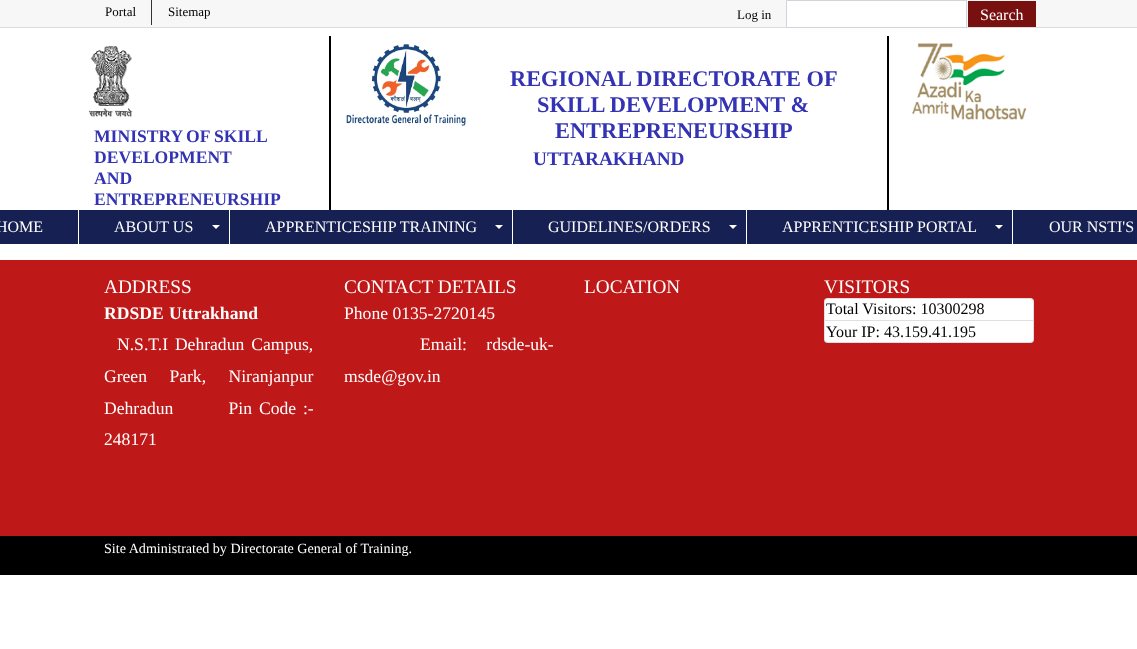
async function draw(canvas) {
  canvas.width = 1137
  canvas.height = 649
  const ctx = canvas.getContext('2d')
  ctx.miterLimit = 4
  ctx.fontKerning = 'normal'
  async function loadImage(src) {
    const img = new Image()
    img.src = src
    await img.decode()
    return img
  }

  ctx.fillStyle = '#fff'
  ctx.fillRect(0, 0, 1137, 649)
  ctx.fillStyle = '#f7f7f7'
  ctx.fillRect(0, 0, 1137, 27)
  ctx.fillStyle = '#ddd'
  ctx.fillRect(0, 27, 1137, 1)
  ctx.fillStyle = '#333'
  ctx.fillRect(151, 0, 1, 25)
  ctx.font = '13px Liberation Serif'
  ctx.fillStyle = '#000'
  ctx.fillText('Portal', 105, 16)
  ctx.fillText('Sitemap', 168, 16)
  ctx.fillText('Log in', 737, 19)
  ctx.fillStyle = '#fff'
  ctx.beginPath()
  ctx.rect(786.5, 0.5, 180, 27)
  ctx.fill()
  ctx.strokeStyle = '#ced4da'
  ctx.stroke()
  ctx.fillStyle = '#791010'
  ctx.fillRect(968, 1, 68, 26)
  ctx.font = '16px Liberation Serif'
  ctx.fillStyle = '#fff'
  ctx.fillText('Search', 980, 20)
  ctx.drawImage(await loadImage('image0.png'), 89, 46, 44, 71)
  ctx.wordSpacing = '-1px'
  ctx.font = 'bold 17.6px Liberation Serif'
  ctx.fillStyle = '#3333b3'
  ctx.fillText('MINISTRY OF', 94, 142)
  ctx.wordSpacing = '0px'
  ctx.fillText('SKILL', 214, 142)
  ctx.fillText('DEVELOPMENT', 94, 163)
  ctx.fillText('AND', 94, 184)
  ctx.fillText('ENTREPRENEURSHIP', 94, 205)
  ctx.fillStyle = '#000'
  ctx.fillRect(887, 36, 2, 174)
  ctx.fillRect(329, 36, 2, 174)
  ctx.drawImage(await loadImage('image1.png'), 346, 44, 120, 82)
  ctx.font = 'bold 22.4px Liberation Serif'
  ctx.fillStyle = '#3333b3'
  ctx.fillText('REGIONAL DIRECTORATE OF', 510, 86)
  ctx.fillText('SKILL DEVELOPMENT &', 537, 112)
  ctx.fillText('ENTREPRENEURSHIP', 555, 138)
  ctx.font = 'bold 19.25px Liberation Serif'
  ctx.fillText('UTTARAKHAND', 533, 165)
  ctx.drawImage(await loadImage('image2.png'), 912, 43, 115, 77)
  ctx.fillStyle = '#172052'
  ctx.fillRect(0, 210, 1137, 34)
  ctx.fillStyle = '#fff'
  ctx.fillRect(78, 210, 1, 34)
  ctx.font = '16px Liberation Serif'
  ctx.fillText('HOME', -4, 232)
  ctx.fillRect(229, 210, 1, 34)
  ctx.fillText('ABOUT US', 114, 232)
  ctx.beginPath()
  ctx.moveTo(212, 225)
  ctx.lineTo(220, 225)
  ctx.lineTo(216, 229)
  ctx.closePath()
  ctx.fill()
  ctx.fillRect(512, 210, 1, 34)
  ctx.fillText('APPRENTICESHIP TRAINING', 265, 232)
  ctx.beginPath()
  ctx.moveTo(495, 225)
  ctx.lineTo(503, 225)
  ctx.lineTo(499, 229)
  ctx.closePath()
  ctx.fill()
  ctx.fillRect(746, 210, 1, 34)
  ctx.fillText('GUIDELINES/ORDERS', 548, 232)
  ctx.beginPath()
  ctx.moveTo(729, 225)
  ctx.lineTo(737, 225)
  ctx.lineTo(733, 229)
  ctx.closePath()
  ctx.fill()
  ctx.fillRect(1012, 210, 1, 34)
  ctx.fillText('APPRENTICESHIP PORTAL', 782, 232)
  ctx.beginPath()
  ctx.moveTo(995, 225)
  ctx.lineTo(1003, 225)
  ctx.lineTo(999, 229)
  ctx.closePath()
  ctx.fill()
  ctx.fillText('OUR NSTI\'S', 1049, 232)
  ctx.fillStyle = '#bf1818'
  ctx.fillRect(0, 260, 1137, 276)
  ctx.font = '19.25px Liberation Serif'
  ctx.fillStyle = '#fff'
  ctx.fillText('ADDRESS', 104, 293)
  ctx.wordSpacing = '1px'
  ctx.font = 'bold 17.6px Liberation Serif'
  ctx.fillText('RDSDE Uttrakhand', 104, 319)
  ctx.wordSpacing = '2.5px'
  ctx.font = '17.6px Liberation Serif'
  ctx.fillText('N.S.T.I Dehradun Campus,', 117, 350)
  ctx.wordSpacing = '18px'
  ctx.fillText('Green Park, Niranjanpur', 104, 382)
  ctx.wordSpacing = '2.5px'
  ctx.fillText('Dehradun        Pin Code :-', 104, 414)
  ctx.wordSpacing = '0px'
  ctx.fillText('248171', 104, 445)
  ctx.font = '19.25px Liberation Serif'
  ctx.fillText('CONTACT DETAILS', 344, 293)
  ctx.font = '17.6px Liberation Serif'
  ctx.fillText('Phone 0135-2720145', 344, 319)
  ctx.wordSpacing = '15px'
  ctx.fillText('Email: rdsde-uk-', 420, 350)
  ctx.wordSpacing = '0px'
  ctx.fillText('msde@gov.in', 344, 382)
  ctx.font = '19.25px Liberation Serif'
  ctx.fillText('LOCATION', 584, 293)
  ctx.fillText('VISITORS', 824, 293)
  ctx.beginPath()
  ctx.roundRect(824, 298, 210, 23, [4, 4, 0, 0])
  ctx.fill()
  ctx.beginPath()
  ctx.roundRect(824.5, 298.5, 209, 22, [3.5, 3.5, 0, 0])
  ctx.strokeStyle = '#0000001f'
  ctx.stroke()
  ctx.font = '16px Liberation Serif'
  ctx.fillStyle = '#000'
  ctx.fillText('Total Visitors: 10300298', 826, 314)
  ctx.fillStyle = '#fff'
  ctx.beginPath()
  ctx.roundRect(824, 321, 210, 22, [0, 0, 4, 4])
  ctx.fill()
  ctx.fillStyle = '#0000001f'
  ctx.beginPath()
  ctx.moveTo(824, 321)
  ctx.lineTo(1034, 321)
  ctx.lineTo(1034, 339)
  ctx.bezierCurveTo(1034, 341, 1032, 343, 1030, 343)
  ctx.lineTo(828, 343)
  ctx.bezierCurveTo(826, 343, 824, 341, 824, 339)
  ctx.closePath()
  ctx.moveTo(825, 321)
  ctx.lineTo(1033, 321)
  ctx.lineTo(1033, 339)
  ctx.bezierCurveTo(1033, 341, 1032, 342, 1030, 342)
  ctx.lineTo(828, 342)
  ctx.bezierCurveTo(826, 342, 825, 341, 825, 339)
  ctx.closePath()
  ctx.fill('evenodd')
  ctx.fillStyle = '#000'
  ctx.fillText('Your IP: 43.159.41.195', 826, 337)
  ctx.fillRect(0, 536, 1137, 39)
  ctx.font = '14.1px Liberation Serif'
  ctx.fillStyle = '#fff'
  ctx.fillText('Site Administrated by Directorate General of Training.', 104, 553)
}

draw(document.querySelector('canvas'))
